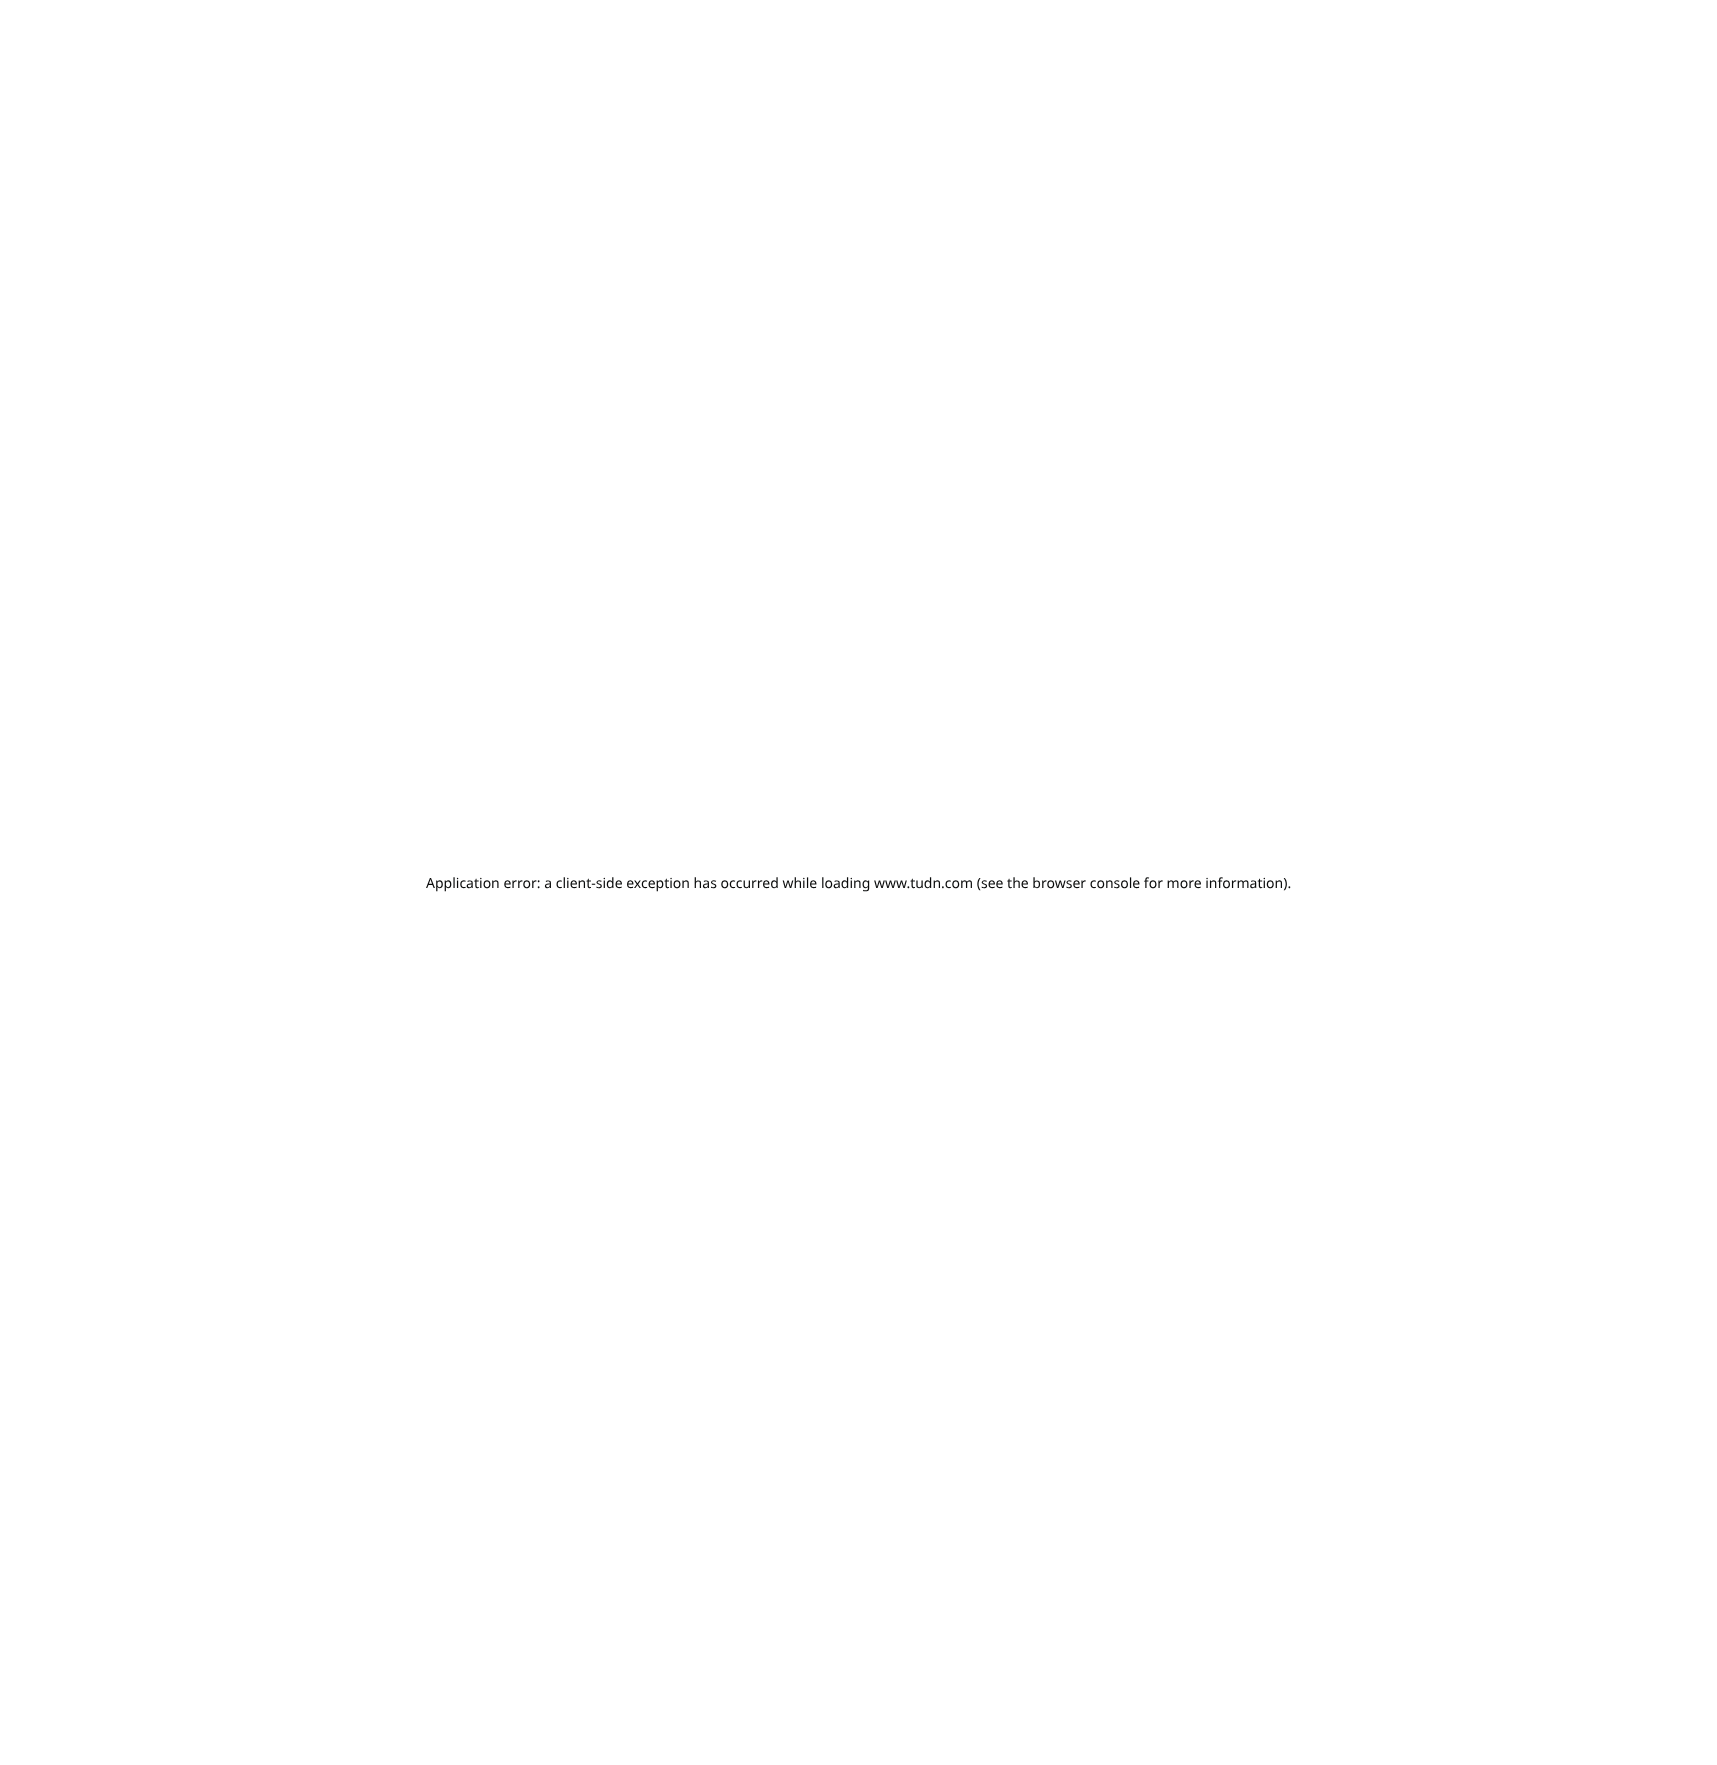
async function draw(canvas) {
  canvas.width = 1717
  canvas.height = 1765
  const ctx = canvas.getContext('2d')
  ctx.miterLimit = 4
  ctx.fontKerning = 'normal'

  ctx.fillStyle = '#fff'
  ctx.fillRect(0, 0, 1717, 1765)
  ctx.font = '14px Noto Sans'
  ctx.fillStyle = '#0a0b0b'
  ctx.fillText('Application error: a client-side exception has occurred while loading www.tudn.com (see the browser console for more information).', 426, 888)
}

draw(document.querySelector('canvas'))
